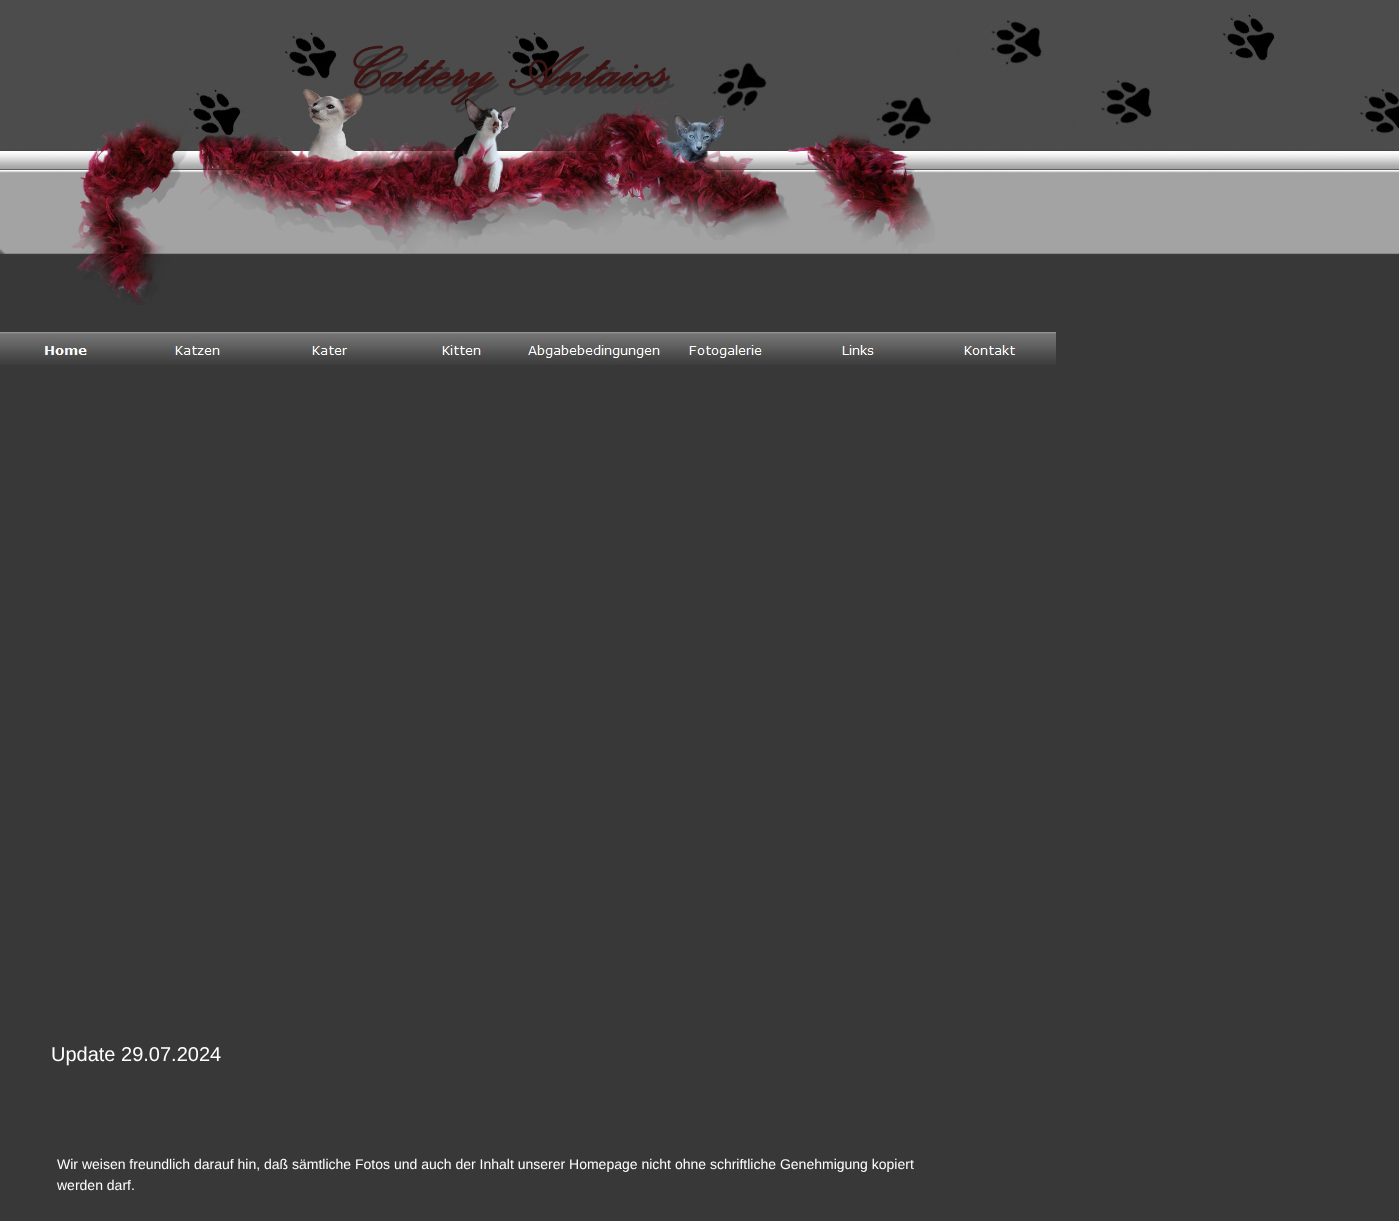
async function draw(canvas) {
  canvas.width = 1399
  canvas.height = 1221
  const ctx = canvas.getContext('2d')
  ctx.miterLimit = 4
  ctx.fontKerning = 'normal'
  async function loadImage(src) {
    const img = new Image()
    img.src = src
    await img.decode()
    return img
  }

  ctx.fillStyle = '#fff'
  ctx.fillRect(0, 0, 1399, 1221)
  ctx.drawImage(await loadImage('image0.png'), 0, 0, 1399, 1221)
  ctx.drawImage(await loadImage('image1.png'), 71, 45, 864, 260)
  ctx.drawImage(await loadImage('image2.png'), 0, 332, 132, 33)
  ctx.drawImage(await loadImage('image3.png'), 132, 332, 132, 33)
  ctx.drawImage(await loadImage('image4.png'), 264, 332, 132, 33)
  ctx.drawImage(await loadImage('image5.png'), 396, 332, 132, 33)
  ctx.drawImage(await loadImage('image6.png'), 528, 332, 132, 33)
  ctx.drawImage(await loadImage('image7.png'), 660, 332, 132, 33)
  ctx.drawImage(await loadImage('image8.png'), 792, 332, 132, 33)
  ctx.drawImage(await loadImage('image9.png'), 924, 332, 132, 33)
  ctx.font = '20px Liberation Sans'
  ctx.fillText('Update 29.07.2024', 51, 1061)
  ctx.font = '14px Liberation Sans'
  ctx.fillText('Wir weisen freundlich darauf hin, daß sämtliche Fotos und auch der Inhalt unserer Homepage nicht ohne schriftliche Genehmigung kopiert', 57, 1169)
  ctx.fillText('werden darf.', 57, 1190)
}

draw(document.querySelector('canvas'))
